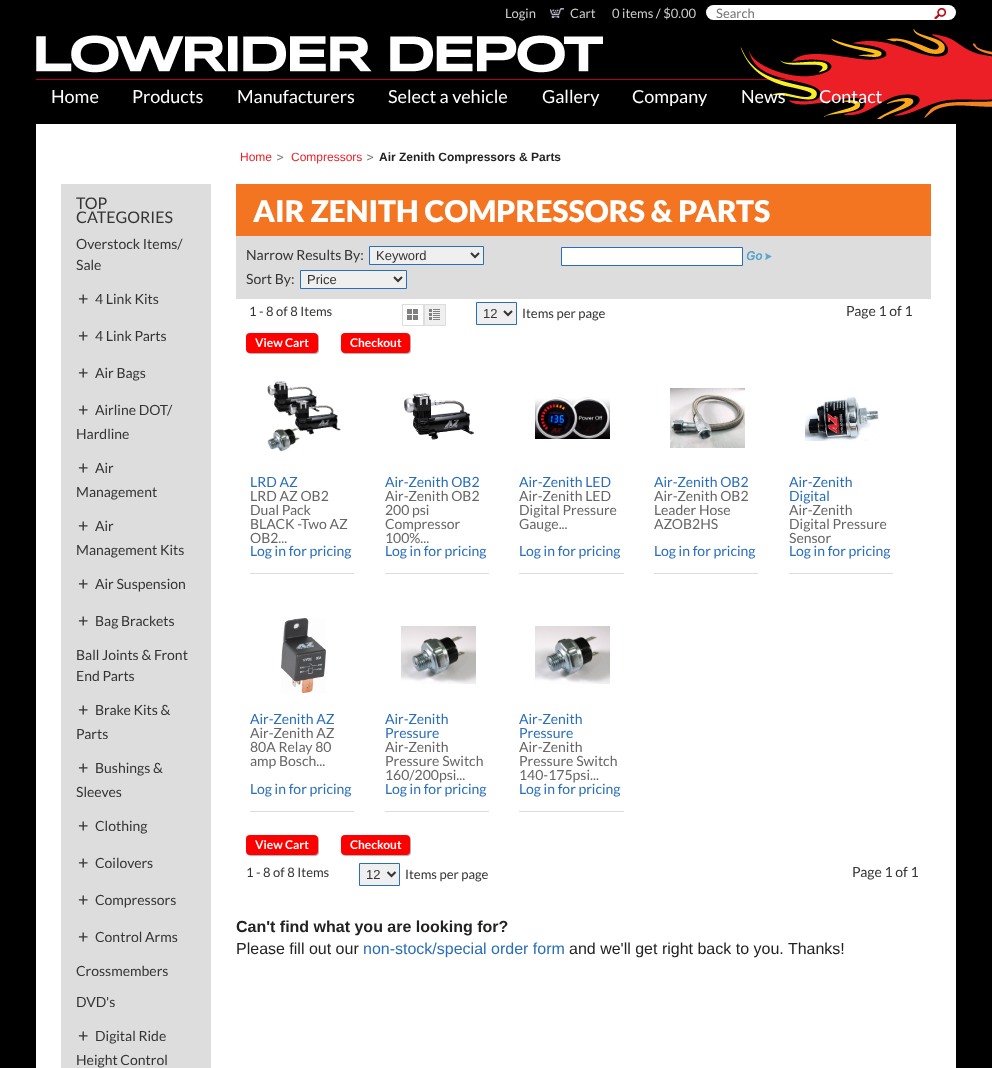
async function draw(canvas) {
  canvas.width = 992
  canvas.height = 1068
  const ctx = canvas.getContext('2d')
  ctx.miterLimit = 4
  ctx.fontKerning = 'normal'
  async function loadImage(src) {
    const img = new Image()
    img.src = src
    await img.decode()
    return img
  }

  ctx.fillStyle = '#000'
  ctx.fillRect(0, 0, 992, 1068)
  ctx.fillStyle = '#b1002c'
  ctx.fillRect(36, 79, 754, 1)
  ctx.drawImage(await loadImage('image0.png'), 740, 29, 252, 90)
  ctx.font = '13px Lato'
  ctx.fillStyle = '#ccc'
  ctx.fillText('Login', 505, 18)
  ctx.drawImage(await loadImage('image1.png'), 550, 8, 14, 10)
  ctx.fillText('Cart', 570, 18)
  ctx.fillText('0 items / $0.00', 612, 18)
  ctx.fillStyle = '#fff'
  ctx.beginPath()
  ctx.roundRect(706, 5, 250, 15, 7.5)
  ctx.fill()
  ctx.fillStyle = '#757575'
  ctx.fillText('Search', 716, 18)
  ctx.drawImage(await loadImage('image2.png'), 934, 8, 12, 11)
  ctx.drawImage(await loadImage('image3.png'), 36, 35, 567, 38)
  ctx.font = '18px Lato'
  ctx.fillStyle = '#fff'
  ctx.fillText('Home', 51, 103)
  ctx.fillText('Products', 132, 103)
  ctx.fillText('Manufacturers', 237, 103)
  ctx.fillText('Select a vehicle', 388, 103)
  ctx.fillText('Gallery', 542, 103)
  ctx.fillText('Company', 632, 103)
  ctx.fillText('News', 741, 103)
  ctx.fillText('Contact', 819, 103)
  ctx.fillRect(36, 124, 920, 944)
  ctx.fillStyle = '#ddd'
  ctx.fillRect(61, 184, 150, 884)
  ctx.font = '16px Lato'
  ctx.fillStyle = '#343434'
  ctx.fillText('TOP', 76, 209)
  ctx.fillText('CATEGORIES', 76, 223)
  ctx.font = '14px Lato'
  ctx.fillText('Overstock Items/', 76, 249)
  ctx.fillText('Sale', 76, 270)
  ctx.font = '18px Lato'
  ctx.fillText('+', 78, 305)
  ctx.font = '14px Lato'
  ctx.fillText('4 Link Kits', 95, 304)
  ctx.font = '18px Lato'
  ctx.fillText('+', 78, 342)
  ctx.font = '14px Lato'
  ctx.fillText('4 Link Parts', 95, 341)
  ctx.font = '18px Lato'
  ctx.fillText('+', 78, 379)
  ctx.font = '14px Lato'
  ctx.fillText('Air Bags', 95, 378)
  ctx.font = '18px Lato'
  ctx.fillText('+', 78, 416)
  ctx.font = '14px Lato'
  ctx.fillText('Airline DOT/', 95, 415)
  ctx.fillText('Hardline', 76, 439)
  ctx.font = '18px Lato'
  ctx.fillText('+', 78, 474)
  ctx.font = '14px Lato'
  ctx.fillText('Air', 95, 473)
  ctx.fillText('Management', 76, 497)
  ctx.font = '18px Lato'
  ctx.fillText('+', 78, 532)
  ctx.font = '14px Lato'
  ctx.fillText('Air', 95, 531)
  ctx.fillText('Management Kits', 76, 555)
  ctx.font = '18px Lato'
  ctx.fillText('+', 78, 590)
  ctx.font = '14px Lato'
  ctx.fillText('Air Suspension', 95, 589)
  ctx.font = '18px Lato'
  ctx.fillText('+', 78, 627)
  ctx.font = '14px Lato'
  ctx.fillText('Bag Brackets', 95, 626)
  ctx.fillText('Ball Joints & Front', 76, 660)
  ctx.fillText('End Parts', 76, 681)
  ctx.font = '18px Lato'
  ctx.fillText('+', 78, 716)
  ctx.font = '14px Lato'
  ctx.fillText('Brake Kits &', 95, 715)
  ctx.fillText('Parts', 76, 739)
  ctx.font = '18px Lato'
  ctx.fillText('+', 78, 774)
  ctx.font = '14px Lato'
  ctx.fillText('Bushings &', 95, 773)
  ctx.fillText('Sleeves', 76, 797)
  ctx.font = '18px Lato'
  ctx.fillText('+', 78, 832)
  ctx.font = '14px Lato'
  ctx.fillText('Clothing', 95, 831)
  ctx.font = '18px Lato'
  ctx.fillText('+', 78, 869)
  ctx.font = '14px Lato'
  ctx.fillText('Coilovers', 95, 868)
  ctx.font = '18px Lato'
  ctx.fillText('+', 78, 906)
  ctx.font = '14px Lato'
  ctx.fillText('Compressors', 95, 905)
  ctx.font = '18px Lato'
  ctx.fillText('+', 78, 943)
  ctx.font = '14px Lato'
  ctx.fillText('Control Arms', 95, 942)
  ctx.fillText('Crossmembers', 76, 976)
  ctx.fillText('DVD\'s', 76, 1007)
  ctx.font = '18px Lato'
  ctx.fillText('+', 78, 1042)
  ctx.font = '14px Lato'
  ctx.fillText('Digital Ride', 95, 1041)
  ctx.fillText('Height Control', 76, 1065)
  ctx.font = '12px Liberation Sans'
  ctx.fillStyle = '#ec1f27'
  ctx.fillText('Home', 240, 161)
  ctx.drawImage(await loadImage('image4.png'), 277, 154, 7, 7)
  ctx.fillText('Compressors', 291, 161)
  ctx.drawImage(await loadImage('image4.png'), 367, 154, 7, 7)
  ctx.font = 'bold 12px Liberation Sans'
  ctx.fillStyle = '#222'
  ctx.fillText('Air Zenith Compressors & Parts', 379, 161)
  ctx.fillStyle = '#f37421'
  ctx.fillRect(236, 184, 695, 52)
  ctx.font = '900 30px Lato'
  ctx.fillStyle = '#fff'
  ctx.fillText('AIR ZENITH COMPRESSORS & PARTS', 253, 222)
  ctx.fillStyle = '#ddd'
  ctx.fillRect(236, 236, 695, 63)
  ctx.font = '14px Lato'
  ctx.fillStyle = '#343434'
  ctx.fillText('Narrow Results By:', 246, 260)
  ctx.fillStyle = '#efefef'
  ctx.beginPath()
  ctx.rect(369.5, 246.5, 114, 18)
  ctx.fill()
  ctx.strokeStyle = '#296ebb'
  ctx.stroke()
  ctx.beginPath()
  ctx.moveTo(471, 253)
  ctx.lineTo(475, 257)
  ctx.lineTo(479, 253)
  ctx.strokeStyle = '#343434'
  ctx.lineWidth = 2
  ctx.stroke()
  ctx.font = '13px Liberation Sans'
  ctx.fillStyle = '#343434'
  ctx.fillText('Keyword', 376, 260)
  ctx.fillStyle = '#fff'
  ctx.beginPath()
  ctx.rect(561.5, 247.5, 181, 18)
  ctx.fill()
  ctx.strokeStyle = '#296ebb'
  ctx.lineWidth = 1
  ctx.stroke()
  ctx.drawImage(await loadImage('image5.png'), 746, 251, 26, 10)
  ctx.font = '14px Lato'
  ctx.fillStyle = '#343434'
  ctx.fillText('Sort By:', 246, 284)
  ctx.fillStyle = '#efefef'
  ctx.beginPath()
  ctx.rect(300.5, 270.5, 106, 18)
  ctx.fill()
  ctx.stroke()
  ctx.beginPath()
  ctx.moveTo(394, 277)
  ctx.lineTo(398, 281)
  ctx.lineTo(402, 277)
  ctx.strokeStyle = '#343434'
  ctx.lineWidth = 2
  ctx.stroke()
  ctx.font = '13px Liberation Sans'
  ctx.fillStyle = '#343434'
  ctx.fillText('Price', 307, 284)
  ctx.font = '13px Lato'
  ctx.fillText('1 - 8 of 8 Items', 249, 316)
  ctx.drawImage(await loadImage('image6.png'), 407, 309, 11, 11)
  ctx.strokeStyle = '#ddd'
  ctx.lineWidth = 1
  ctx.strokeRect(402.5, 304.5, 21, 21)
  ctx.fillStyle = '#efefef'
  ctx.fillRect(425, 305, 20, 20)
  ctx.drawImage(await loadImage('image7.png'), 429, 309, 11, 11)
  ctx.strokeRect(424.5, 304.5, 21, 21)
  ctx.beginPath()
  ctx.rect(476.5, 302.5, 40, 22)
  ctx.fill()
  ctx.strokeStyle = '#296ebb'
  ctx.stroke()
  ctx.beginPath()
  ctx.moveTo(504, 311)
  ctx.lineTo(508, 315)
  ctx.lineTo(512, 311)
  ctx.strokeStyle = '#343434'
  ctx.lineWidth = 2
  ctx.stroke()
  ctx.font = '13px Liberation Sans'
  ctx.fillStyle = '#343434'
  ctx.fillText('12', 483, 318)
  ctx.font = '13px Lato'
  ctx.fillText('Items per page', 522, 318)
  ctx.font = '14px Lato'
  ctx.fillText('Page 1 of 1', 846, 316)
  ctx.fillStyle = '#0000004d'
  ctx.filter = 'blur(0.5px)'
  ctx.beginPath()
  ctx.roundRect(247, 334, 72, 20, 4)
  ctx.fill()
  ctx.filter = 'none'
  ctx.fillStyle = '#f00'
  ctx.beginPath()
  ctx.roundRect(246, 333, 72, 20, 4)
  ctx.fill()
  ctx.font = 'bold 12px Lato'
  ctx.fillStyle = '#fff'
  ctx.fillText('View Cart', 255, 347)
  ctx.fillStyle = '#0000004d'
  ctx.filter = 'blur(0.5px)'
  ctx.beginPath()
  ctx.roundRect(342, 334, 69, 20, 4)
  ctx.fill()
  ctx.filter = 'none'
  ctx.fillStyle = '#f00'
  ctx.beginPath()
  ctx.roundRect(341, 333, 69, 20, 4)
  ctx.fill()
  ctx.fillStyle = '#fff'
  ctx.fillText('Checkout', 350, 347)
  ctx.fillStyle = '#ddd'
  ctx.fillRect(250, 573, 104, 1)
  ctx.drawImage(await loadImage('image8.png'), 267, 381, 74, 71)
  ctx.font = '14px Lato'
  ctx.fillStyle = '#296ebb'
  ctx.fillText('LRD AZ', 250, 487)
  ctx.fillStyle = '#666'
  ctx.fillText('LRD AZ OB2', 250, 501)
  ctx.fillText('Dual Pack', 250, 515)
  ctx.fillText('BLACK -Two AZ', 250, 529)
  ctx.fillText('OB2...', 250, 543)
  ctx.fillStyle = '#296ebb'
  ctx.fillText('Log in for pricing', 250, 556)
  ctx.fillStyle = '#ddd'
  ctx.fillRect(385, 573, 104, 1)
  ctx.drawImage(await loadImage('image9.png'), 404, 393, 70, 47)
  ctx.fillStyle = '#296ebb'
  ctx.fillText('Air-Zenith OB2', 385, 487)
  ctx.fillStyle = '#666'
  ctx.fillText('Air-Zenith OB2', 385, 501)
  ctx.fillText('200 psi', 385, 515)
  ctx.fillText('Compressor', 385, 529)
  ctx.fillText('100%...', 385, 543)
  ctx.fillStyle = '#296ebb'
  ctx.fillText('Log in for pricing', 385, 556)
  ctx.fillStyle = '#ddd'
  ctx.fillRect(519, 573, 105, 1)
  ctx.drawImage(await loadImage('image10.png'), 535, 397, 75, 42)
  ctx.fillStyle = '#296ebb'
  ctx.fillText('Air-Zenith LED', 519, 487)
  ctx.fillStyle = '#666'
  ctx.fillText('Air-Zenith LED', 519, 501)
  ctx.fillText('Digital Pressure', 519, 515)
  ctx.fillText('Gauge...', 519, 529)
  ctx.fillStyle = '#296ebb'
  ctx.fillText('Log in for pricing', 519, 556)
  ctx.fillStyle = '#ddd'
  ctx.fillRect(654, 573, 104, 1)
  ctx.drawImage(await loadImage('image11.png'), 670, 388, 75, 60)
  ctx.fillStyle = '#296ebb'
  ctx.fillText('Air-Zenith OB2', 654, 487)
  ctx.fillStyle = '#666'
  ctx.fillText('Air-Zenith OB2', 654, 501)
  ctx.fillText('Leader Hose', 654, 515)
  ctx.fillText('AZOB2HS', 654, 529)
  ctx.fillStyle = '#296ebb'
  ctx.fillText('Log in for pricing', 654, 556)
  ctx.fillStyle = '#ddd'
  ctx.fillRect(789, 573, 104, 1)
  ctx.drawImage(await loadImage('image12.png'), 805, 397, 74, 44)
  ctx.fillStyle = '#296ebb'
  ctx.fillText('Air-Zenith', 789, 487)
  ctx.fillText('Digital', 789, 501)
  ctx.fillStyle = '#666'
  ctx.fillText('Air-Zenith', 789, 515)
  ctx.fillText('Digital Pressure', 789, 529)
  ctx.fillText('Sensor', 789, 543)
  ctx.fillStyle = '#296ebb'
  ctx.fillText('Log in for pricing', 789, 556)
  ctx.fillStyle = '#ddd'
  ctx.fillRect(250, 811, 104, 1)
  ctx.drawImage(await loadImage('image13.png'), 281, 618, 45, 75)
  ctx.fillStyle = '#296ebb'
  ctx.fillText('Air-Zenith AZ', 250, 724)
  ctx.fillStyle = '#666'
  ctx.fillText('Air-Zenith AZ', 250, 738)
  ctx.fillText('80A Relay 80', 250, 752)
  ctx.fillText('amp Bosch...', 250, 766)
  ctx.fillStyle = '#296ebb'
  ctx.fillText('Log in for pricing', 250, 794)
  ctx.fillStyle = '#ddd'
  ctx.fillRect(385, 811, 104, 1)
  ctx.drawImage(await loadImage('image14.png'), 401, 626, 75, 58)
  ctx.fillStyle = '#296ebb'
  ctx.fillText('Air-Zenith', 385, 724)
  ctx.fillText('Pressure', 385, 738)
  ctx.fillStyle = '#666'
  ctx.fillText('Air-Zenith', 385, 752)
  ctx.fillText('Pressure Switch', 385, 766)
  ctx.fillText('160/200psi...', 385, 780)
  ctx.fillStyle = '#296ebb'
  ctx.fillText('Log in for pricing', 385, 794)
  ctx.fillStyle = '#ddd'
  ctx.fillRect(519, 811, 105, 1)
  ctx.drawImage(await loadImage('image14.png'), 535, 626, 75, 58)
  ctx.fillStyle = '#296ebb'
  ctx.fillText('Air-Zenith', 519, 724)
  ctx.fillText('Pressure', 519, 738)
  ctx.fillStyle = '#666'
  ctx.fillText('Air-Zenith', 519, 752)
  ctx.fillText('Pressure Switch', 519, 766)
  ctx.fillText('140-175psi...', 519, 780)
  ctx.fillStyle = '#296ebb'
  ctx.fillText('Log in for pricing', 519, 794)
  ctx.fillStyle = '#0000004d'
  ctx.filter = 'blur(0.5px)'
  ctx.beginPath()
  ctx.roundRect(247, 836, 72, 20, 4)
  ctx.fill()
  ctx.filter = 'none'
  ctx.fillStyle = '#f00'
  ctx.beginPath()
  ctx.roundRect(246, 835, 72, 20, 4)
  ctx.fill()
  ctx.font = 'bold 12px Lato'
  ctx.fillStyle = '#fff'
  ctx.fillText('View Cart', 255, 849)
  ctx.fillStyle = '#0000004d'
  ctx.filter = 'blur(0.5px)'
  ctx.beginPath()
  ctx.roundRect(342, 836, 69, 20, 4)
  ctx.fill()
  ctx.filter = 'none'
  ctx.fillStyle = '#f00'
  ctx.beginPath()
  ctx.roundRect(341, 835, 69, 20, 4)
  ctx.fill()
  ctx.fillStyle = '#fff'
  ctx.fillText('Checkout', 350, 849)
  ctx.font = '13px Lato'
  ctx.fillStyle = '#343434'
  ctx.fillText('1 - 8 of 8 Items', 246, 877)
  ctx.fillStyle = '#efefef'
  ctx.beginPath()
  ctx.rect(359.5, 863.5, 40, 22)
  ctx.fill()
  ctx.strokeStyle = '#296ebb'
  ctx.lineWidth = 1
  ctx.stroke()
  ctx.beginPath()
  ctx.moveTo(387.5, 872)
  ctx.lineTo(391.5, 876)
  ctx.lineTo(395.5, 872)
  ctx.strokeStyle = '#343434'
  ctx.lineWidth = 2
  ctx.stroke()
  ctx.font = '13px Liberation Sans'
  ctx.fillStyle = '#343434'
  ctx.fillText('12', 366, 879)
  ctx.font = '13px Lato'
  ctx.fillText('Items per page', 405, 879)
  ctx.font = '14px Lato'
  ctx.fillText('Page 1 of 1', 852, 877)
  ctx.font = 'bold 16px Liberation Sans'
  ctx.fillStyle = '#222'
  ctx.fillText('Can\'t find what you are looking for?', 236, 932)
  ctx.font = '16px Liberation Sans'
  ctx.fillText('Please fill out our', 236, 954)
  ctx.fillStyle = '#296ebb'
  ctx.fillText('non-stock/special order form', 363, 954)
  ctx.fillStyle = '#222'
  ctx.fillText('and we\'ll get right back to you. Thanks!', 569, 954)
}

draw(document.querySelector('canvas'))
